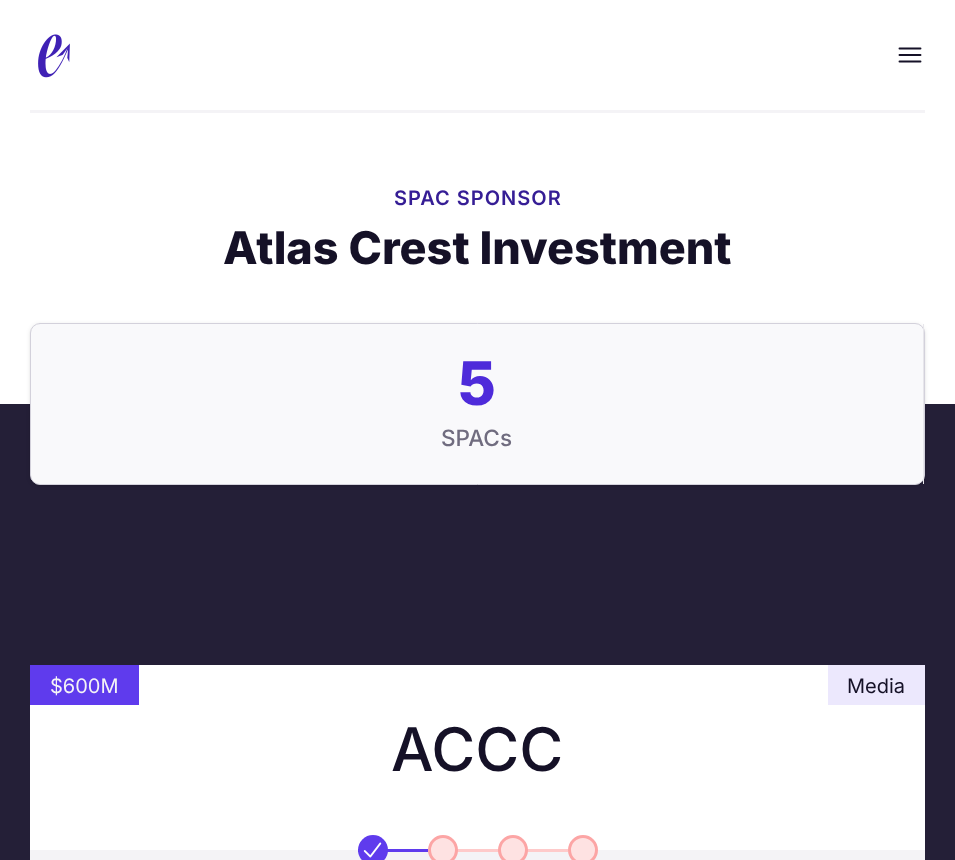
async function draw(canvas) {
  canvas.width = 955
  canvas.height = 860
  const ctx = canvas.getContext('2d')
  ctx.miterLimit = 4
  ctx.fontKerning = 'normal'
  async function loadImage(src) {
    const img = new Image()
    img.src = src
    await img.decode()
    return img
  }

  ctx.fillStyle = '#fff'
  ctx.fillRect(0, 0, 955, 860)
  ctx.fillStyle = '#f4f3f6'
  ctx.fillRect(30, 110, 895, 3)
  ctx.drawImage(await loadImage('image0.png'), 38, 34, 32, 44)
  ctx.beginPath()
  ctx.moveTo(899.5, 48.5)
  ctx.lineTo(920.5, 48.5)
  ctx.moveTo(899.5, 55)
  ctx.lineTo(920.5, 55)
  ctx.moveTo(899.5, 61.5)
  ctx.lineTo(920.5, 61.5)
  ctx.strokeStyle = '#151127'
  ctx.lineWidth = 1.9
  ctx.lineCap = 'round'
  ctx.lineJoin = 'round'
  ctx.stroke()
  ctx.letterSpacing = '1px'
  ctx.font = '600 20px Inter'
  ctx.fillStyle = '#351d95'
  ctx.fillText('SPAC SPONSOR', 394, 205)
  ctx.letterSpacing = '0px'
  ctx.font = '800 45px Inter'
  ctx.fillStyle = '#151127'
  ctx.fillText('Atlas Crest Investment', 223, 264)
  ctx.fillStyle = '#241f37'
  ctx.fillRect(0, 404, 955, 456)
  ctx.fillStyle = '#0000001a'
  ctx.filter = 'blur(1px)'
  ctx.beginPath()
  ctx.roundRect(31, 325, 893, 160, 9)
  ctx.fill()
  ctx.filter = 'none'
  ctx.filter = 'blur(2px)'
  ctx.beginPath()
  ctx.roundRect(30, 324, 895, 162, 10)
  ctx.fill()
  ctx.filter = 'none'
  ctx.fillStyle = '#f9f9fb'
  ctx.beginPath()
  ctx.roundRect(30.5, 323.5, 894, 161, 9.5)
  ctx.fill()
  ctx.strokeStyle = '#d3d1db'
  ctx.lineWidth = 1
  ctx.lineJoin = 'miter'
  ctx.stroke()
  ctx.fillStyle = '#e7e6eb'
  ctx.fillRect(923, 324, 1, 160)
  ctx.font = '800 60px Inter'
  ctx.fillStyle = '#4e2bda'
  ctx.fillText('5', 458, 405)
  ctx.font = '500 22.5px Inter'
  ctx.fillStyle = '#706c7f'
  ctx.fillText('SPACs', 441, 446)
  ctx.fillStyle = '#fff'
  ctx.fillRect(30, 665, 895, 185)
  ctx.fillStyle = '#5f3bed'
  ctx.fillRect(30, 665, 109, 40)
  ctx.font = '20px Inter'
  ctx.fillStyle = '#f4f3f6'
  ctx.fillText('$600M', 50, 693)
  ctx.fillStyle = '#ece8fd'
  ctx.fillRect(828, 665, 97, 40)
  ctx.fillStyle = '#151127'
  ctx.fillText('Media', 847, 693)
  ctx.font = '500 60px Inter'
  ctx.fillText('ACCC', 391, 771)
  ctx.fillStyle = '#f4f3f6'
  ctx.fillRect(30, 850, 895, 10)
  ctx.fillStyle = '#5f3bed'
  ctx.fillRect(358, 849, 70, 3)
  ctx.beginPath()
  ctx.arc(373, 850, 15, 0, 2 * Math.PI)
  ctx.fill()
  ctx.drawImage(await loadImage('image1.png'), 363, 842, 19, 16)
  ctx.fillStyle = '#fecaca'
  ctx.fillRect(428, 849, 140, 3)
  ctx.fillStyle = '#fee2e2'
  ctx.beginPath()
  ctx.arc(443, 850, 13.5, 0, 2 * Math.PI)
  ctx.fill()
  ctx.strokeStyle = '#fca5a5'
  ctx.lineWidth = 3
  ctx.stroke()
  ctx.beginPath()
  ctx.arc(513, 850, 13.5, 0, 2 * Math.PI)
  ctx.fill()
  ctx.stroke()
  ctx.beginPath()
  ctx.arc(583, 850, 13.5, 0, 2 * Math.PI)
  ctx.fill()
  ctx.stroke()
}

draw(document.querySelector('canvas'))
